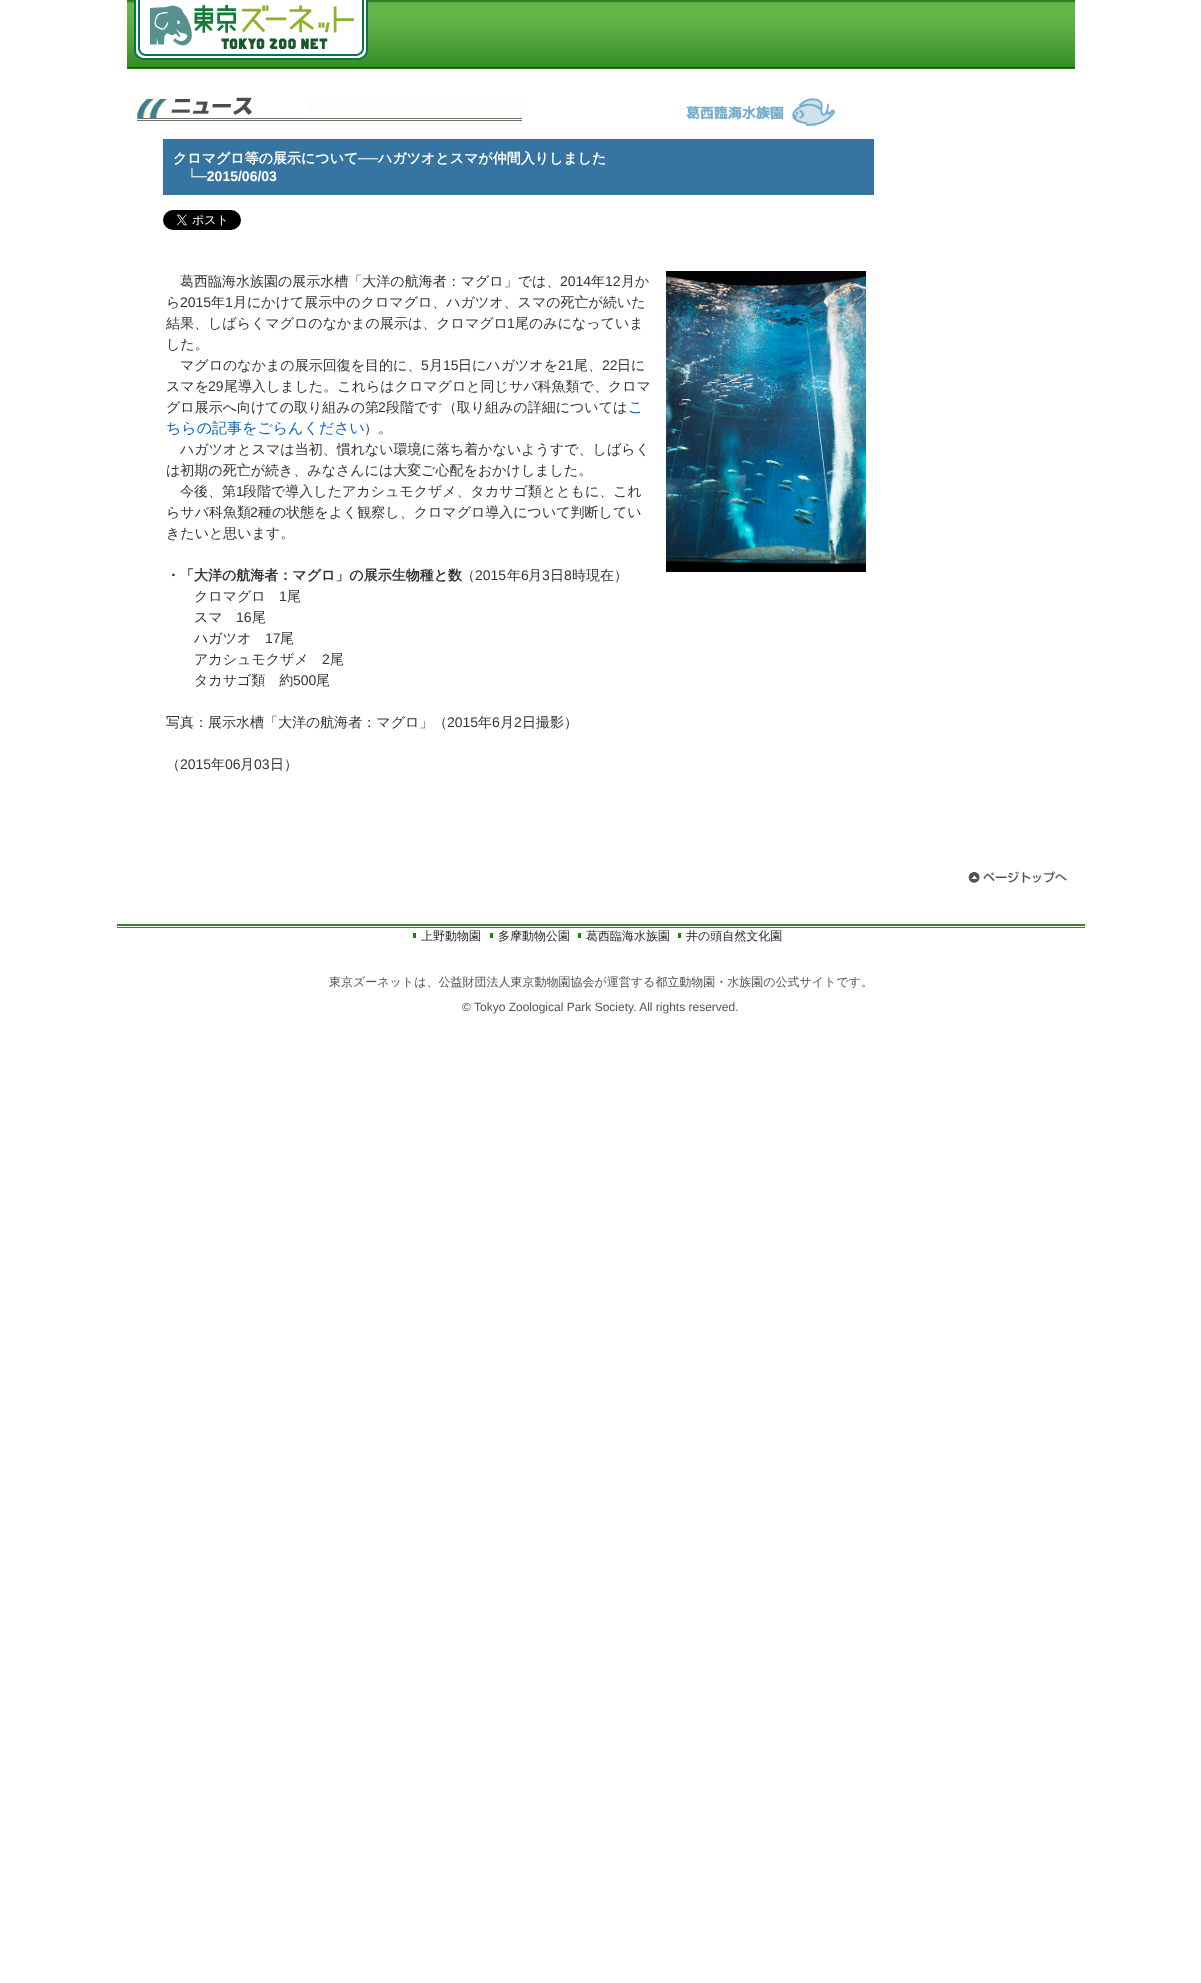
async function draw(canvas) {
  canvas.width = 1201
  canvas.height = 1983
  const ctx = canvas.getContext('2d')
  ctx.miterLimit = 4
  ctx.fontKerning = 'normal'
  async function loadImage(src) {
    const img = new Image()
    img.src = src
    await img.decode()
    return img
  }

  ctx.fillStyle = '#fff'
  ctx.fillRect(0, 0, 1201, 1983)
  ctx.drawImage(await loadImage('image0.png'), 127, 0, 948, 69)
  ctx.drawImage(await loadImage('image1.png'), 134, 0, 234, 60)
  ctx.drawImage(await loadImage('image2.png'), 137, 97, 385, 24)
  ctx.drawImage(await loadImage('image3.png'), 686, 98, 149, 28)
  ctx.fillStyle = '#3675a2'
  ctx.fillRect(163, 139, 711, 56)
  ctx.font = 'bold 14px WenQuanYi Zen Hei'
  ctx.fillStyle = '#fff'
  ctx.fillText('クロマグロ等の展示について', 173, 163)
  ctx.font = 'bold 14px Liberation Sans'
  ctx.fillText('──', 358, 163)
  ctx.font = 'bold 14px WenQuanYi Zen Hei'
  ctx.fillText('ハガツオとスマが仲間入りしました', 378, 163)
  ctx.font = 'bold 14px Liberation Sans'
  ctx.fillText('└─2015/06/03', 187, 181)
  ctx.drawImage(await loadImage('image4.png'), 163, 210, 78, 20)
  ctx.font = '500 14px WenQuanYi Zen Hei'
  ctx.fillStyle = '#333'
  ctx.fillText('葛西臨海水族園の展示水槽「大洋の航海者：マグロ」では、', 180, 286)
  ctx.font = '14px Liberation Sans'
  ctx.fillText('2014', 560, 286)
  ctx.font = '500 14px WenQuanYi Zen Hei'
  ctx.fillText('年', 591, 286)
  ctx.font = '14px Liberation Sans'
  ctx.fillText('12', 605, 286)
  ctx.font = '500 14px WenQuanYi Zen Hei'
  ctx.fillText('月か', 621, 286)
  ctx.fillText('ら', 166, 307)
  ctx.font = '14px Liberation Sans'
  ctx.fillText('2015', 180, 307)
  ctx.font = '500 14px WenQuanYi Zen Hei'
  ctx.fillText('年', 211, 307)
  ctx.font = '14px Liberation Sans'
  ctx.fillText('1', 225, 307)
  ctx.font = '500 14px WenQuanYi Zen Hei'
  ctx.fillText('月にかけて展示中のクロマグロ、ハガツオ、スマの死亡が続いた', 233, 307)
  ctx.fillText('結果、しばらくマグロのなかまの展示は、クロマグロ', 166, 328)
  ctx.font = '14px Liberation Sans'
  ctx.fillText('1', 507, 328)
  ctx.font = '500 14px WenQuanYi Zen Hei'
  ctx.fillText('尾のみになっていま', 515, 328)
  ctx.fillText('した。', 166, 349)
  ctx.fillText('マグロのなかまの展示回復を目的に、', 180, 370)
  ctx.font = '14px Liberation Sans'
  ctx.fillText('5', 421, 370)
  ctx.font = '500 14px WenQuanYi Zen Hei'
  ctx.fillText('月', 429, 370)
  ctx.font = '14px Liberation Sans'
  ctx.fillText('15', 443, 370)
  ctx.font = '500 14px WenQuanYi Zen Hei'
  ctx.fillText('日にハガツオを', 458, 370)
  ctx.font = '14px Liberation Sans'
  ctx.fillText('21', 558, 370)
  ctx.font = '500 14px WenQuanYi Zen Hei'
  ctx.fillText('尾、', 574, 370)
  ctx.font = '14px Liberation Sans'
  ctx.fillText('22', 602, 370)
  ctx.font = '500 14px WenQuanYi Zen Hei'
  ctx.fillText('日に', 617, 370)
  ctx.fillText('スマを', 166, 391)
  ctx.font = '14px Liberation Sans'
  ctx.fillText('29', 208, 391)
  ctx.font = '500 14px WenQuanYi Zen Hei'
  ctx.fillText('尾導入しました。これらはクロマグロと同じサバ科魚類で、クロマ', 224, 391)
  ctx.fillText('グロ展示へ向けての取り組みの第', 166, 412)
  ctx.font = '14px Liberation Sans'
  ctx.fillText('2', 378, 412)
  ctx.font = '500 14px WenQuanYi Zen Hei'
  ctx.fillText('段階です（取り組みの詳細については', 386, 412)
  ctx.font = '500 15px WenQuanYi Zen Hei'
  ctx.fillStyle = '#06c'
  ctx.fillText('こ', 628, 412)
  ctx.fillText('ちらの記事をごらんください', 166, 433)
  ctx.font = '500 14px WenQuanYi Zen Hei'
  ctx.fillStyle = '#333'
  ctx.fillText('）。', 364, 433)
  ctx.fillText('ハガツオとスマは当初、慣れない環境に落ち着かないようすで、しばらく', 180, 454)
  ctx.fillText('は初期の死亡が続き、みなさんには大変ご心配をおかけしました。', 166, 475)
  ctx.fillText('今後、第', 180, 496)
  ctx.font = '14px Liberation Sans'
  ctx.fillText('1', 236, 496)
  ctx.font = '500 14px WenQuanYi Zen Hei'
  ctx.fillText('段階で導入したアカシュモクザメ、タカサゴ類とともに、これ', 243, 496)
  ctx.fillText('らサバ科魚類', 166, 517)
  ctx.font = '14px Liberation Sans'
  ctx.fillText('2', 250, 517)
  ctx.font = '500 14px WenQuanYi Zen Hei'
  ctx.fillText('種の状態をよく観察し、クロマグロ導入について判断してい', 258, 517)
  ctx.fillText('きたいと思います。', 166, 538)
  ctx.font = 'bold 14px WenQuanYi Zen Hei'
  ctx.fillText('・「大洋の航海者：マグロ」の展示生物種と数', 166, 580)
  ctx.font = '500 14px WenQuanYi Zen Hei'
  ctx.fillText('（', 461, 580)
  ctx.font = '14px Liberation Sans'
  ctx.fillText('2015', 475, 580)
  ctx.font = '500 14px WenQuanYi Zen Hei'
  ctx.fillText('年', 507, 580)
  ctx.font = '14px Liberation Sans'
  ctx.fillText('6', 521, 580)
  ctx.font = '500 14px WenQuanYi Zen Hei'
  ctx.fillText('月', 528, 580)
  ctx.font = '14px Liberation Sans'
  ctx.fillText('3', 542, 580)
  ctx.font = '500 14px WenQuanYi Zen Hei'
  ctx.fillText('日', 550, 580)
  ctx.font = '14px Liberation Sans'
  ctx.fillText('8', 564, 580)
  ctx.font = '500 14px WenQuanYi Zen Hei'
  ctx.fillText('時現在）', 572, 580)
  ctx.fillText('クロマグロ', 194, 601)
  ctx.font = '14px Liberation Sans'
  ctx.fillText('1', 279, 601)
  ctx.font = '500 14px WenQuanYi Zen Hei'
  ctx.fillText('尾', 287, 601)
  ctx.fillText('スマ', 194, 622)
  ctx.font = '14px Liberation Sans'
  ctx.fillText('16', 236, 622)
  ctx.font = '500 14px WenQuanYi Zen Hei'
  ctx.fillText('尾', 252, 622)
  ctx.fillText('ハガツオ', 194, 643)
  ctx.font = '14px Liberation Sans'
  ctx.fillText('17', 265, 643)
  ctx.font = '500 14px WenQuanYi Zen Hei'
  ctx.fillText('尾', 280, 643)
  ctx.fillText('アカシュモクザメ', 194, 664)
  ctx.font = '14px Liberation Sans'
  ctx.fillText('2', 322, 664)
  ctx.font = '500 14px WenQuanYi Zen Hei'
  ctx.fillText('尾', 330, 664)
  ctx.fillText('タカサゴ類　約', 194, 685)
  ctx.font = '14px Liberation Sans'
  ctx.fillText('500', 293, 685)
  ctx.font = '500 14px WenQuanYi Zen Hei'
  ctx.fillText('尾', 316, 685)
  ctx.fillText('写真：展示水槽「大洋の航海者：マグロ」（', 166, 727)
  ctx.font = '14px Liberation Sans'
  ctx.fillText('2015', 447, 727)
  ctx.font = '500 14px WenQuanYi Zen Hei'
  ctx.fillText('年', 478, 727)
  ctx.font = '14px Liberation Sans'
  ctx.fillText('6', 492, 727)
  ctx.font = '500 14px WenQuanYi Zen Hei'
  ctx.fillText('月', 500, 727)
  ctx.font = '14px Liberation Sans'
  ctx.fillText('2', 514, 727)
  ctx.font = '500 14px WenQuanYi Zen Hei'
  ctx.fillText('日撮影）', 522, 727)
  ctx.fillText('（', 166, 769)
  ctx.font = '14px Liberation Sans'
  ctx.fillText('2015', 180, 769)
  ctx.font = '500 14px WenQuanYi Zen Hei'
  ctx.fillText('年', 211, 769)
  ctx.font = '14px Liberation Sans'
  ctx.fillText('06', 225, 769)
  ctx.font = '500 14px WenQuanYi Zen Hei'
  ctx.fillText('月', 240, 769)
  ctx.font = '14px Liberation Sans'
  ctx.fillText('03', 254, 769)
  ctx.font = '500 14px WenQuanYi Zen Hei'
  ctx.fillText('日）', 270, 769)
  ctx.drawImage(await loadImage('image5.png'), 666, 271, 200, 301)
  ctx.drawImage(await loadImage('image6.png'), 968, 871, 99, 12)
  ctx.drawImage(await loadImage('image7.png'), 117, 924, 968, 4)
  ctx.font = '500 12px WenQuanYi Zen Hei'
  ctx.fillStyle = '#262626'
  ctx.fillText('上野動物園', 421, 940)
  ctx.fillStyle = '#247c18'
  ctx.fillRect(413, 933, 3, 5)
  ctx.fillStyle = '#262626'
  ctx.fillText('多摩動物公園', 498, 940)
  ctx.fillStyle = '#247c18'
  ctx.fillRect(490, 933, 3, 5)
  ctx.fillStyle = '#262626'
  ctx.fillText('葛西臨海水族園', 586, 940)
  ctx.fillStyle = '#247c18'
  ctx.fillRect(578, 933, 3, 5)
  ctx.fillStyle = '#262626'
  ctx.fillText('井の頭自然文化園', 686, 940)
  ctx.fillStyle = '#247c18'
  ctx.fillRect(678, 933, 3, 5)
  ctx.fillStyle = '#535353'
  ctx.fillText('東京ズーネットは、公益財団法人東京動物園協会が運営する都立動物園・水族園の公式サイトです。', 329, 986)
  ctx.font = '12px Liberation Sans'
  ctx.fillText('© Tokyo Zoological Park Society. All rights reserved.', 462, 1011)
}

draw(document.querySelector('canvas'))
